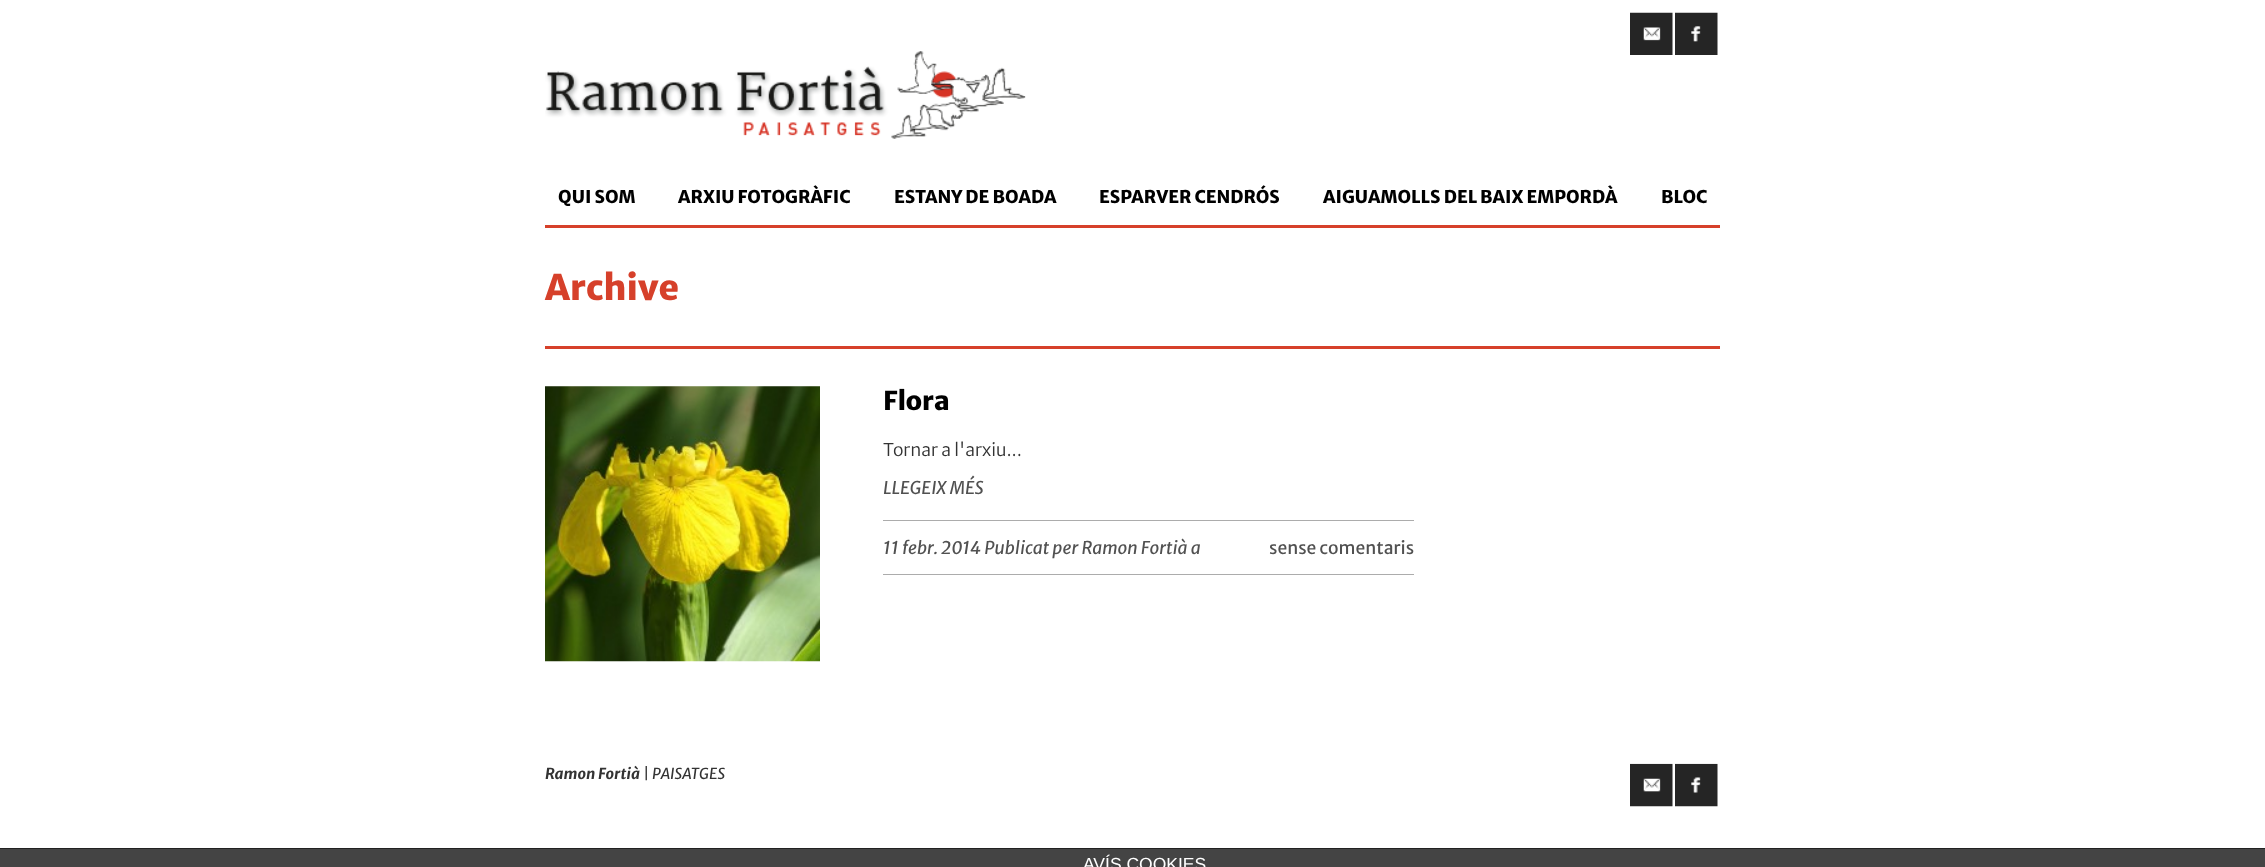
async function draw(canvas) {
  canvas.width = 2265
  canvas.height = 867
  const ctx = canvas.getContext('2d')
  ctx.miterLimit = 4
  ctx.fontKerning = 'normal'
  async function loadImage(src) {
    const img = new Image()
    img.src = src
    await img.decode()
    return img
  }

  ctx.fillStyle = '#fff'
  ctx.fillRect(0, 0, 2265, 867)
  ctx.fillStyle = '#d6402a'
  ctx.fillRect(545, 225, 1175, 3)
  ctx.drawImage(await loadImage('image0.png'), 1630, 12, 43, 43)
  ctx.drawImage(await loadImage('image1.png'), 1675, 12, 43, 43)
  ctx.drawImage(await loadImage('image2.png'), 545, 51, 481, 88)
  ctx.font = '800 17.5px Merriweather Sans'
  ctx.fillStyle = '#000'
  ctx.fillText('QUI SOM', 558, 203)
  ctx.fillText('ARXIU FOTOGRÀFIC', 678, 203)
  ctx.fillText('ESTANY DE BOADA', 894, 203)
  ctx.fillText('ESPARVER CENDRÓS', 1099, 203)
  ctx.fillText('AIGUAMOLLS DEL BAIX EMPORDÀ', 1323, 203)
  ctx.fillText('BLOC', 1661, 203)
  ctx.fillStyle = '#d6402a'
  ctx.fillRect(545, 346, 1175, 3)
  ctx.font = '800 35px Merriweather Sans'
  ctx.fillText('Archive', 545, 300)
  ctx.drawImage(await loadImage('image3.png'), 545, 386, 275, 276)
  ctx.font = '800 26px Merriweather Sans'
  ctx.fillStyle = '#000'
  ctx.fillText('Flora', 883, 410)
  ctx.font = '300 17.5px Merriweather Sans'
  ctx.fillStyle = '#333'
  ctx.fillText('Tornar a l\'arxiu...', 883, 456)
  ctx.font = 'italic 17.5px Merriweather Sans'
  ctx.fillStyle = '#515151'
  ctx.fillText('LLEGEIX MÉS', 883, 494)
  ctx.fillStyle = '#acacac'
  ctx.fillRect(883, 520, 531, 1)
  ctx.fillRect(883, 574, 531, 1)
  ctx.fillStyle = '#515151'
  ctx.fillText('11 febr. 2014 Publicat per Ramon Fortià a', 883, 554)
  ctx.font = '17.5px Merriweather Sans'
  ctx.fillText('sense comentaris', 1269, 554)
  ctx.font = 'italic bold 15px Merriweather Sans'
  ctx.fillStyle = '#333'
  ctx.fillText('Ramon Fortià', 545, 779)
  ctx.font = 'italic 15px Merriweather Sans'
  ctx.fillText('| PAISATGES', 643, 779)
  ctx.drawImage(await loadImage('image4.png'), 1630, 763, 43, 44)
  ctx.drawImage(await loadImage('image5.png'), 1675, 763, 43, 44)
  ctx.fillStyle = '#444'
  ctx.fillRect(0, 849, 2265, 18)
  ctx.fillStyle = '#222'
  ctx.fillRect(0, 848, 2265, 1)
  ctx.font = '17.5px Liberation Sans'
  ctx.fillStyle = '#fff'
  ctx.fillText('AVÍS COOKIES', 1083, 870)
}

draw(document.querySelector('canvas'))
